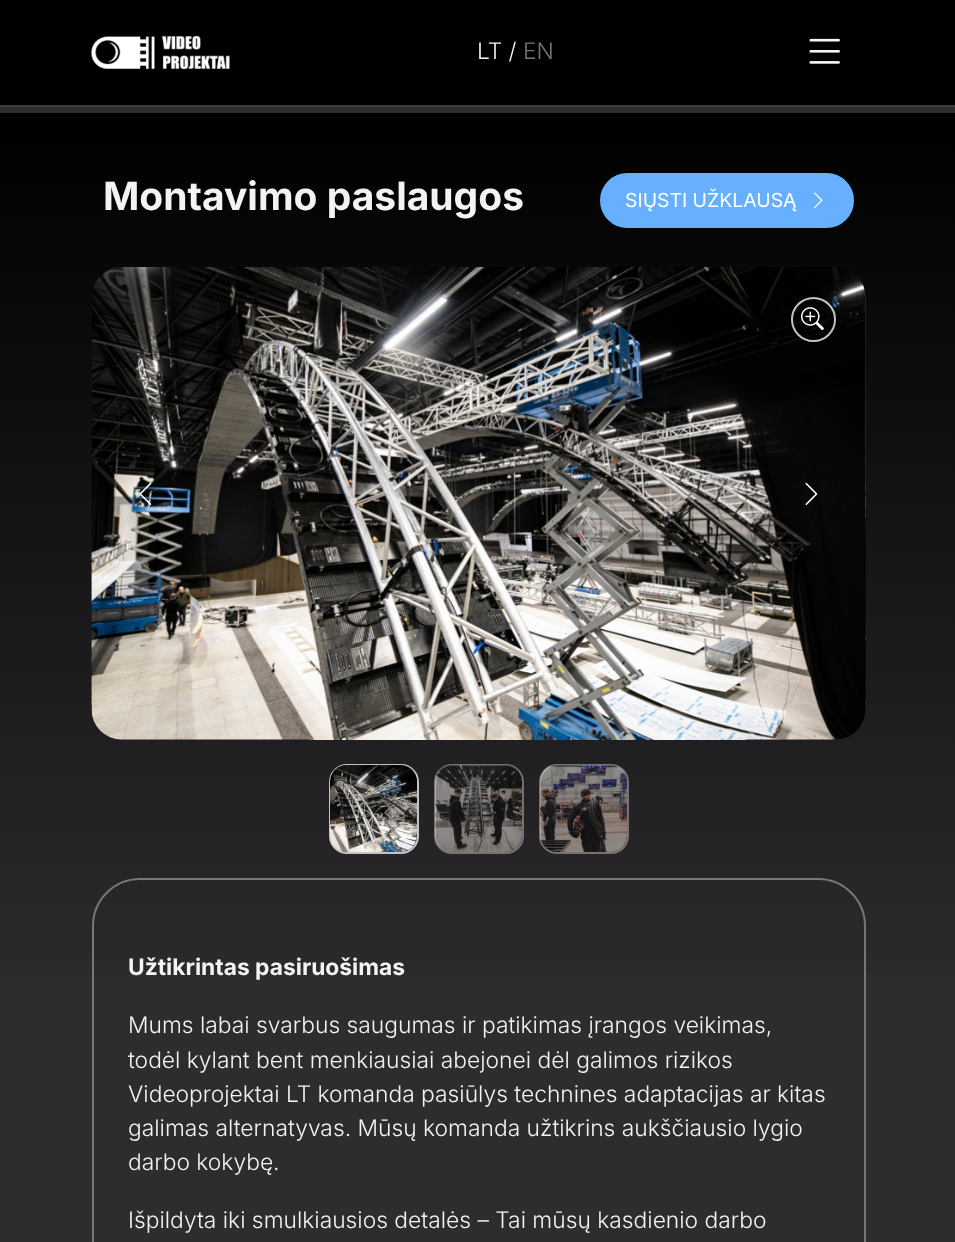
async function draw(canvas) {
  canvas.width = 955
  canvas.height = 1242
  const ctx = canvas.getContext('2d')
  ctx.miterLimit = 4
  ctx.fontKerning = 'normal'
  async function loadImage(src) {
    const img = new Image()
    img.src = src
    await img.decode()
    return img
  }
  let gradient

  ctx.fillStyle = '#2e2c2f'
  ctx.fillRect(0, 0, 955, 1242)
  ctx.fillStyle = '#000'
  ctx.fillRect(0, 0, 955, 105)
  ctx.fillStyle = '#3b4040'
  ctx.fillRect(0, 105, 955, 2)
  ctx.drawImage(await loadImage('image0.png'), 91, 35, 139, 34)
  ctx.font = '300 22.8px Inter'
  ctx.fillStyle = '#f3f3f3'
  ctx.fillText('LT /', 477, 59)
  ctx.fillStyle = '#777'
  ctx.fillText('EN', 523, 59)
  ctx.drawImage(await loadImage('image1.png'), 809, 38, 31, 26)
  gradient = ctx.createLinearGradient(478, 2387, 478, 113)
  gradient.addColorStop(0, '#2e2c2f')
  gradient.addColorStop(0.6, '#2e2c2f')
  gradient.addColorStop(1, '#000')
  ctx.fillStyle = gradient
  ctx.fillRect(0, 113, 955, 861)
  ctx.font = 'bold 39px Inter'
  ctx.fillStyle = '#f3f3f3'
  ctx.fillText('Montavimo paslaugos', 103, 210)
  ctx.fillStyle = '#66b0ff'
  ctx.beginPath()
  ctx.roundRect(601, 174, 252, 53, 26.5)
  ctx.fill()
  ctx.strokeStyle = '#66b0ff'
  ctx.lineWidth = 2
  ctx.stroke()
  ctx.font = '19.4px Inter'
  ctx.fillStyle = '#fff'
  ctx.fillText('SIŲSTI UŽKLAUSĄ', 625, 207)
  ctx.drawImage(await loadImage('image2.png'), 814, 192, 9, 17)
  ctx.drawImage(await loadImage('image3.png'), 91, 267, 775, 473)
  ctx.beginPath()
  ctx.arc(813.5, 319.5, 21.5, 0, 2 * Math.PI)
  ctx.strokeStyle = '#c3c3c3'
  ctx.stroke()
  ctx.drawImage(await loadImage('image4.png'), 801, 307, 23, 23)
  ctx.drawImage(await loadImage('image5.png'), 865, 293, 1, 413)
  ctx.drawImage(await loadImage('image6.png'), 139, 482, 13, 23)
  ctx.drawImage(await loadImage('image7.png'), 805, 482, 13, 23)
  ctx.beginPath()
  ctx.roundRect(330, 765, 88, 88, 17)
  ctx.stroke()
  ctx.drawImage(await loadImage('image8.png'), 330, 765, 87, 87)
  ctx.beginPath()
  ctx.roundRect(435, 765, 88, 88, 17)
  ctx.strokeStyle = '#c3c3c380'
  ctx.stroke()
  ctx.drawImage(await loadImage('image9.png'), 435, 765, 87, 87)
  ctx.beginPath()
  ctx.roundRect(540, 765, 88, 88, 17)
  ctx.stroke()
  ctx.drawImage(await loadImage('image10.png'), 540, 765, 87, 87)
  ctx.beginPath()
  ctx.roundRect(93, 879, 772, 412, 47)
  ctx.strokeStyle = '#777'
  ctx.stroke()
  ctx.font = 'bold 22.8px Inter'
  ctx.fillStyle = '#f3f3f3'
  ctx.fillText('Užtikrintas pasiruošimas', 128, 975)
  ctx.font = '300 22.8px Inter'
  ctx.fillText('Mums labai svarbus saugumas ir patikimas įrangos veikimas,', 128, 1033)
  ctx.fillText('todėl kylant bent menkiausiai abejonei dėl galimos rizikos', 128, 1068)
  ctx.fillText('Videoprojektai LT komanda pasiūlys technines adaptacijas ar kitas', 128, 1102)
  ctx.fillText('galimas alternatyvas. Mūsų komanda užtikrins aukščiausio lygio', 128, 1136)
  ctx.fillText('darbo kokybę.', 128, 1170)
  ctx.fillText('Išpildyta iki smulkiausios detalės – Tai mūsų kasdienio darbo', 128, 1228)
}

draw(document.querySelector('canvas'))
